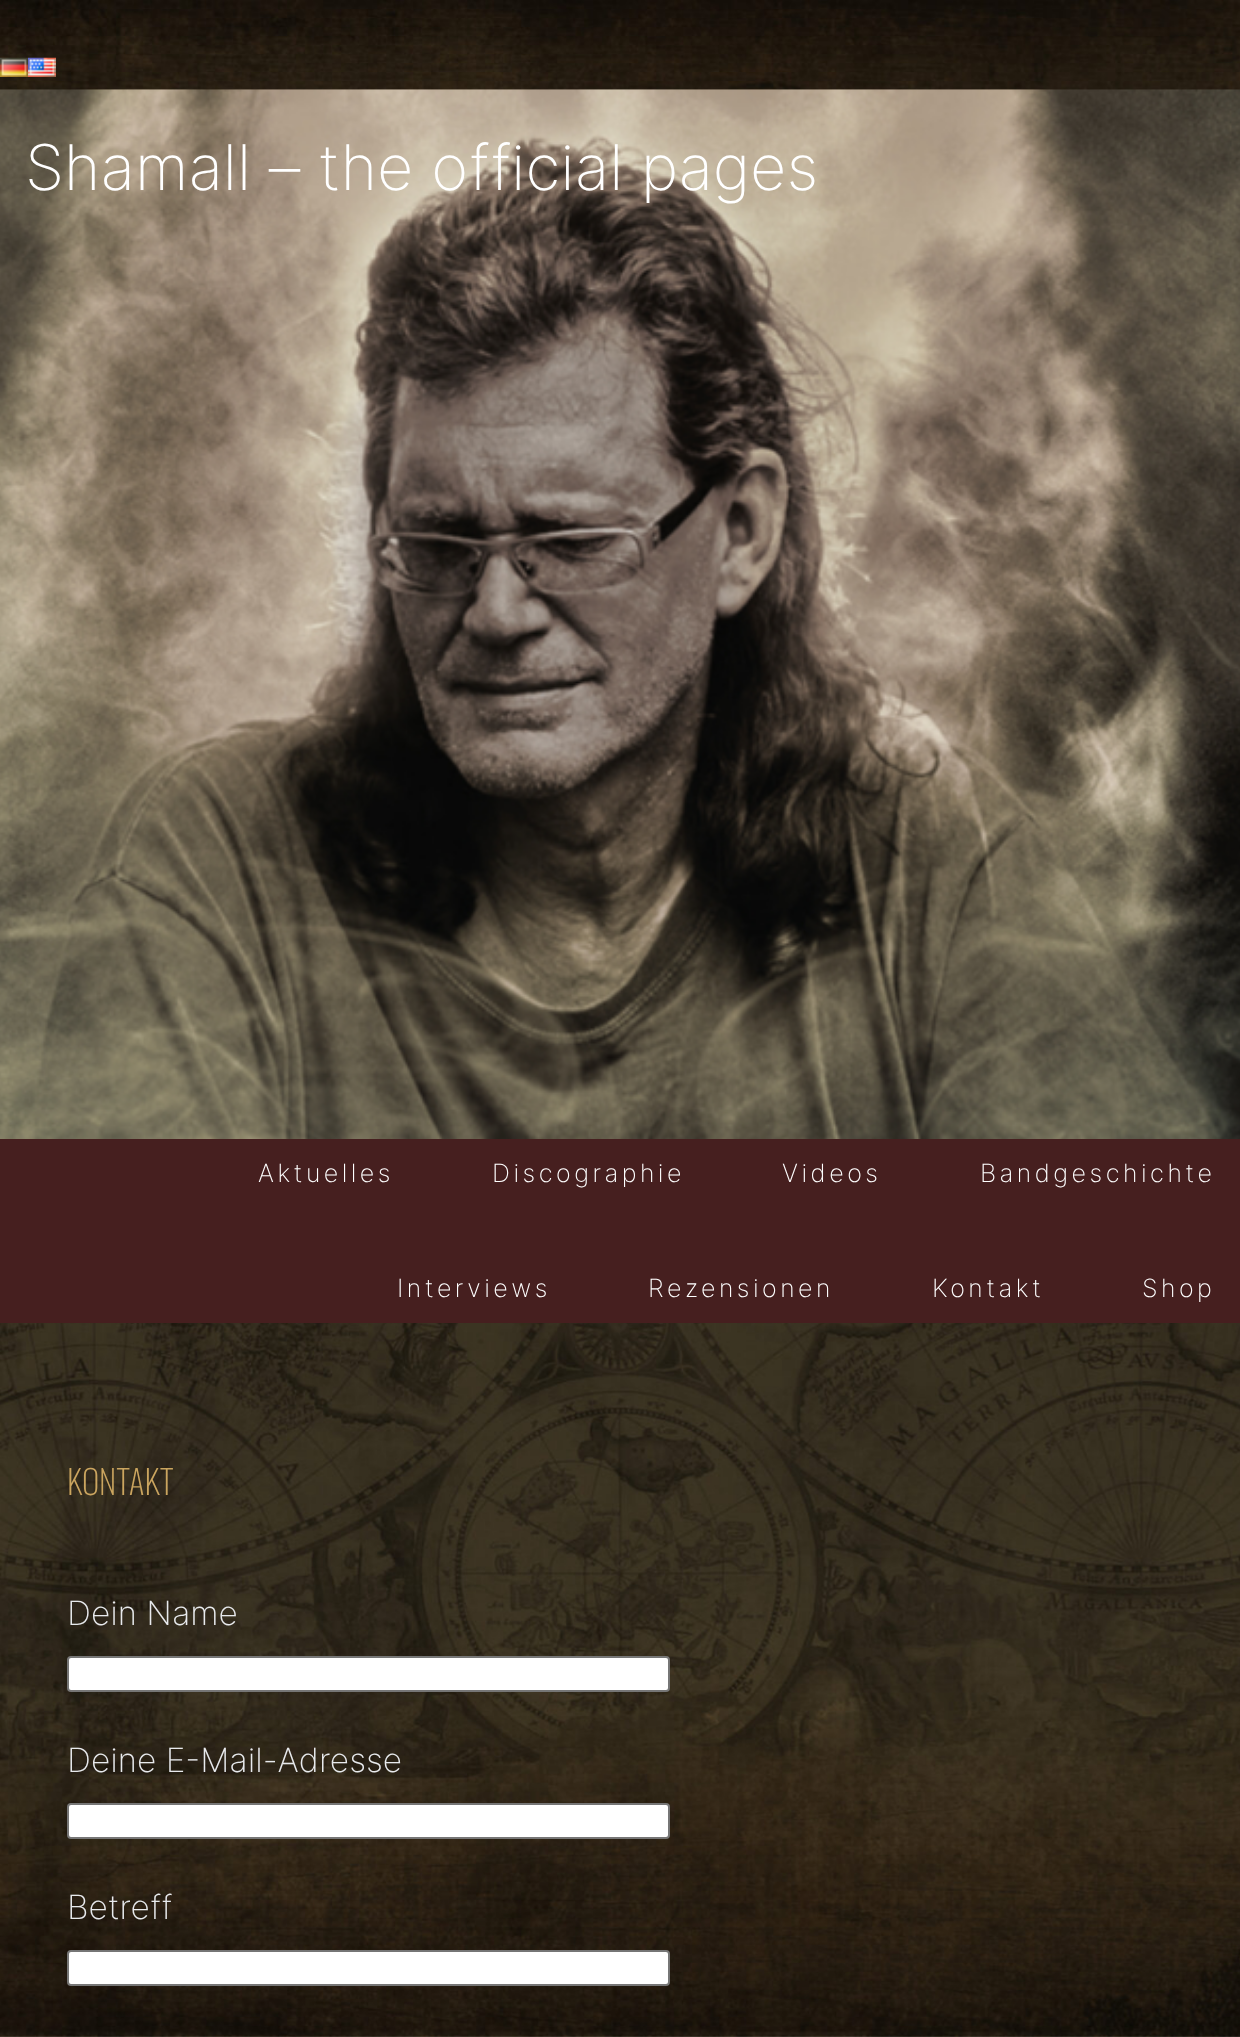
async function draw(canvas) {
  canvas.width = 1240
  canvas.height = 2037
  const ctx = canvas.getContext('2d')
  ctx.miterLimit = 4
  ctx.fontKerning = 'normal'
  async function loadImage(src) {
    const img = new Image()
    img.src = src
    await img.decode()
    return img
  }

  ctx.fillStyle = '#fff'
  ctx.fillRect(0, 0, 1240, 2037)
  ctx.drawImage(await loadImage('image0.png'), 0, 0, 1240, 2037)
  ctx.drawImage(await loadImage('image1.png'), 0, 57, 28, 20)
  ctx.drawImage(await loadImage('image2.png'), 28, 57, 28, 20)
  ctx.drawImage(await loadImage('image3.png'), 0, 89, 1240, 1050)
  ctx.font = '200 63px Inter'
  ctx.fillText('Shamall – the official pages', 25, 190)
  ctx.fillStyle = '#461f1f'
  ctx.fillRect(0, 1139, 1240, 184)
  ctx.letterSpacing = '3.5px'
  ctx.font = '200 25px Inter'
  ctx.fillStyle = '#fff'
  ctx.fillText('Aktuelles', 258, 1182)
  ctx.fillText('Discographie', 492, 1182)
  ctx.fillText('Videos', 782, 1182)
  ctx.fillText('Bandgeschichte', 980, 1182)
  ctx.fillText('Interviews', 397, 1297)
  ctx.fillText('Rezensionen', 648, 1297)
  ctx.fillText('Kontakt', 932, 1297)
  ctx.fillText('Shop', 1142, 1297)
  ctx.letterSpacing = '0px'
  ctx.font = '200 33.4px Oswald'
  ctx.fillStyle = '#cba55f'
  ctx.fillText('KONTAKT', 67, 1495)
  ctx.font = '200 33.4px Inter'
  ctx.fillStyle = '#e8eaed'
  ctx.fillText('Dein Name', 67, 1625)
  ctx.fillStyle = '#fff'
  ctx.beginPath()
  ctx.roundRect(68, 1657, 601, 34, 3)
  ctx.fill()
  ctx.strokeStyle = '#767676'
  ctx.lineWidth = 2
  ctx.stroke()
  ctx.fillStyle = '#e8eaed'
  ctx.fillText('Deine E-Mail-Adresse', 67, 1772)
  ctx.fillStyle = '#fff'
  ctx.beginPath()
  ctx.roundRect(68, 1804, 601, 34, 3)
  ctx.fill()
  ctx.stroke()
  ctx.fillStyle = '#e8eaed'
  ctx.fillText('Betreff', 67, 1919)
  ctx.fillStyle = '#fff'
  ctx.beginPath()
  ctx.roundRect(68, 1951, 601, 34, 3)
  ctx.fill()
  ctx.stroke()
}

draw(document.querySelector('canvas'))
